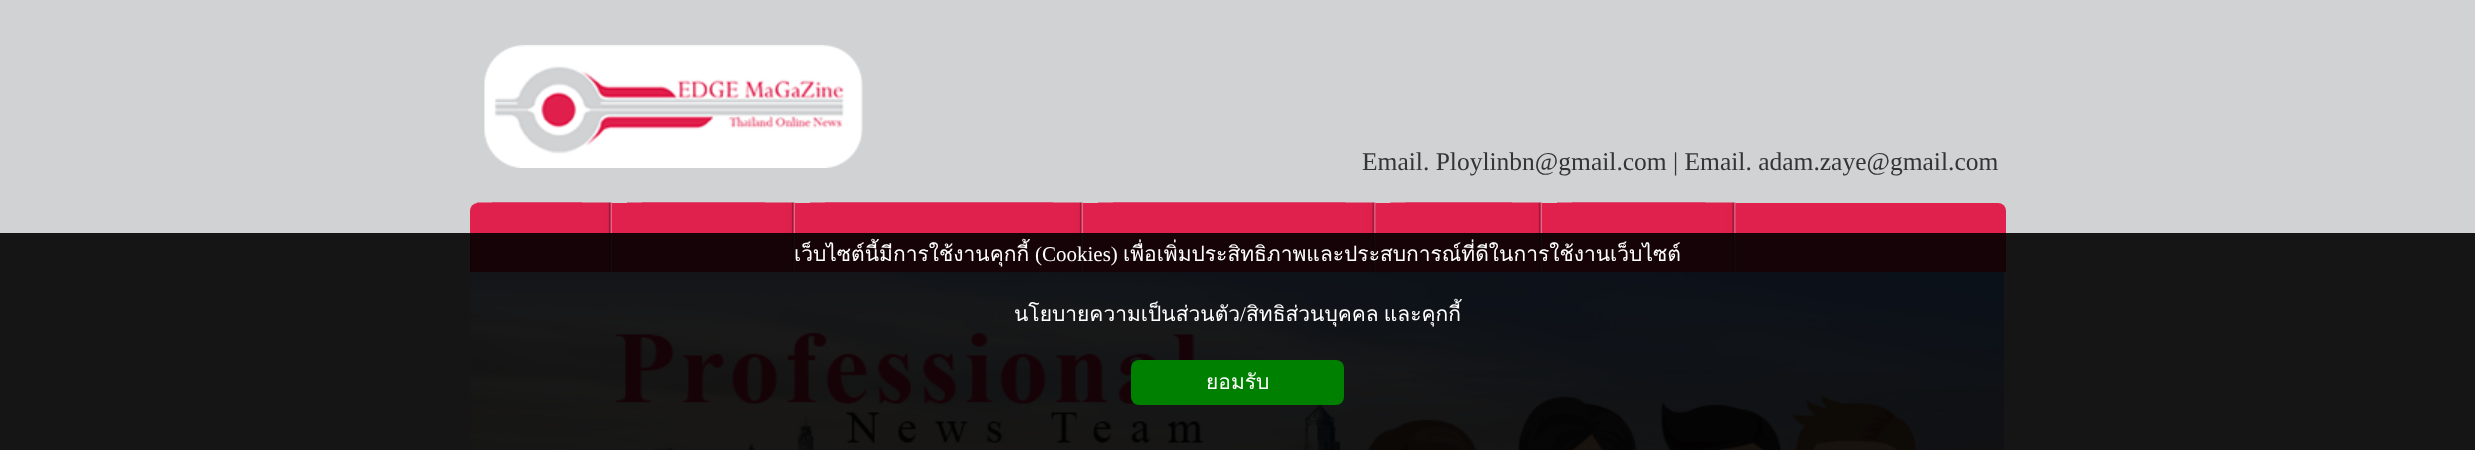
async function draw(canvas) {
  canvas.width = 2475
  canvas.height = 450
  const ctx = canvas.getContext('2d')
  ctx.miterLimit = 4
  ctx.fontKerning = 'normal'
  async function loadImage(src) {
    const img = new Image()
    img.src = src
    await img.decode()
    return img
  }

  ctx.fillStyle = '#d0d2d3'
  ctx.fillRect(0, 0, 2475, 450)
  ctx.drawImage(await loadImage('image0.png'), 484, 45, 379, 123)
  ctx.font = '25.5px Liberation Serif'
  ctx.fillStyle = '#343434'
  ctx.fillText('Email. Ploylinbn@gmail.com | Email. adam.zaye@gmail.com', 1362, 170)
  ctx.fillStyle = '#e0204d'
  ctx.beginPath()
  ctx.roundRect(470, 203, 1536, 69, [8, 8, 0, 0])
  ctx.fill()
  ctx.drawImage(await loadImage('image1.png'), 492, 202, 120, 70)
  ctx.drawImage(await loadImage('image2.png'), 477, 202, 105, 2)
  ctx.drawImage(await loadImage('image3.png'), 642, 202, 153, 70)
  ctx.fillStyle = '#df204c80'
  ctx.fillRect(627, 202, 138, 1)
  ctx.drawImage(await loadImage('image4.png'), 825, 202, 258, 70)
  ctx.fillRect(810, 202, 243, 1)
  ctx.drawImage(await loadImage('image5.png'), 1113, 202, 263, 70)
  ctx.drawImage(await loadImage('image6.png'), 1098, 202, 248, 1)
  ctx.drawImage(await loadImage('image7.png'), 1405, 202, 137, 70)
  ctx.drawImage(await loadImage('image8.png'), 1390, 202, 122, 1)
  ctx.drawImage(await loadImage('image9.png'), 1572, 202, 164, 70)
  ctx.drawImage(await loadImage('image10.png'), 1557, 202, 149, 1)
  ctx.drawImage(await loadImage('image11.png'), 471, 272, 1533, 178)
  ctx.fillStyle = '#000000e6'
  ctx.fillRect(0, 233, 2475, 217)
  ctx.font = '21px Loma'
  ctx.fillStyle = '#fff'
  ctx.fillText('เว็บไซต์นี้มีการใช้งานคุกกี้', 794, 261)
  ctx.font = '21px Liberation Serif'
  ctx.fillText('(Cookies)', 1035, 261)
  ctx.font = '21px Loma'
  ctx.fillText('เพื่อเพิ่มประสิทธิภาพและประสบการณ์ที่ดีในการใช้งานเว็บไซต์', 1123, 261)
  ctx.fillText('นโยบายความเป็นส่วนตัว', 1014, 321)
  ctx.font = '21px Liberation Serif'
  ctx.fillText('/', 1240, 321)
  ctx.wordSpacing = '-2px'
  ctx.font = '21px Loma'
  ctx.fillText('สิทธิส่วนบุคคล และคุกกี้', 1246, 321)
  ctx.fillStyle = '#008000'
  ctx.beginPath()
  ctx.roundRect(1131, 360, 213, 45, 8)
  ctx.fill()
  ctx.wordSpacing = '0px'
  ctx.fillStyle = '#fff'
  ctx.fillText('ยอมรับ', 1206, 389)
}

draw(document.querySelector('canvas'))
